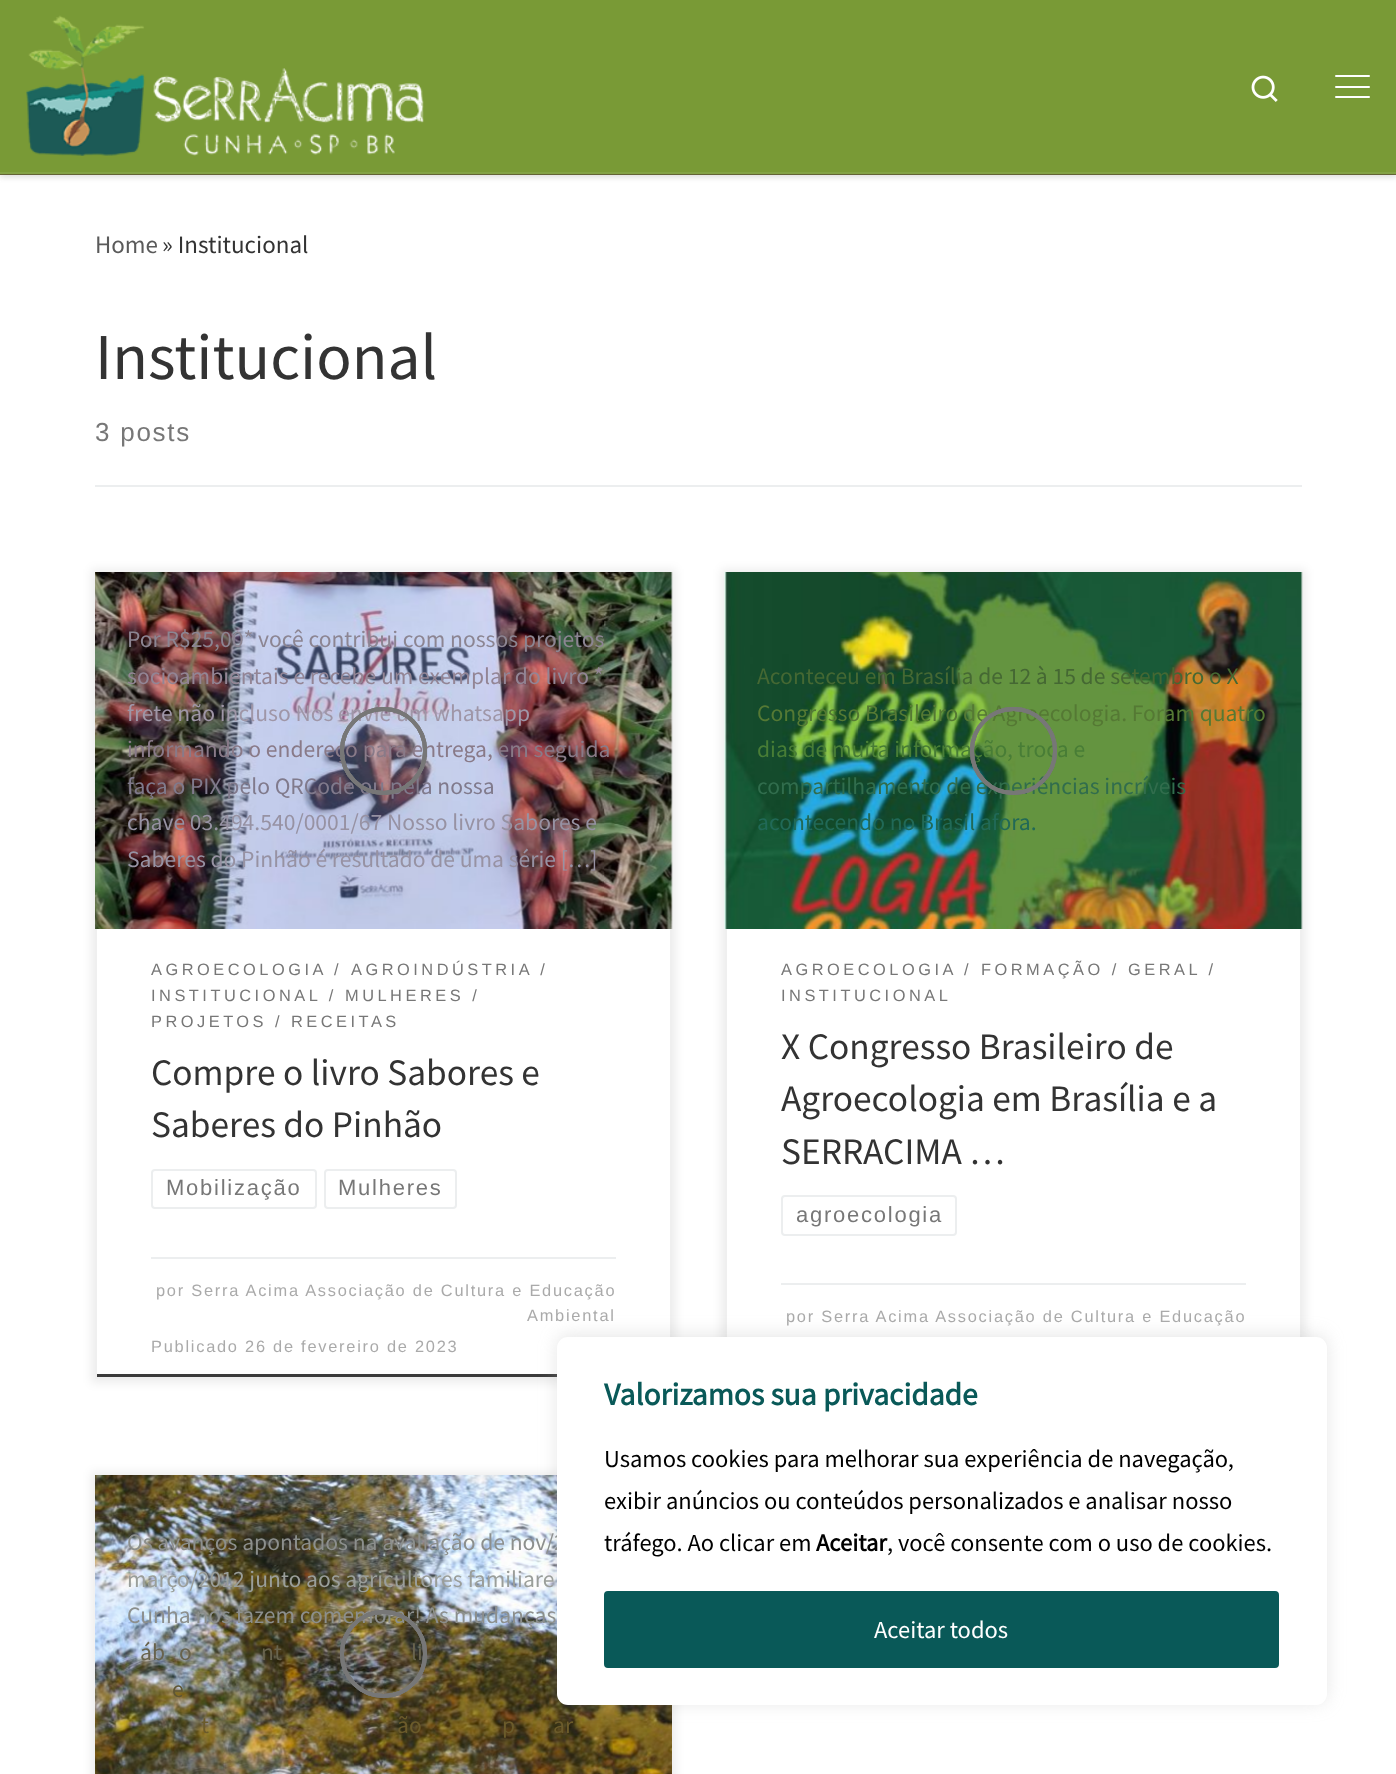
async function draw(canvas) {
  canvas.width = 1396
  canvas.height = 1774
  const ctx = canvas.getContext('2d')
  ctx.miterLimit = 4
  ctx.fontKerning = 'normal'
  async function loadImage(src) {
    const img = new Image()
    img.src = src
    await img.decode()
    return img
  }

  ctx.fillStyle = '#fff'
  ctx.fillRect(0, 0, 1396, 1774)
  ctx.fillStyle = '#66666614'
  ctx.filter = 'blur(2px)'
  ctx.beginPath()
  ctx.rect(0, 4, 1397, 175)
  ctx.fill()
  ctx.filter = 'none'
  ctx.fillStyle = '#6b6b3a'
  ctx.beginPath()
  ctx.moveTo(0, 173)
  ctx.lineTo(0, 175)
  ctx.lineTo(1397, 175)
  ctx.lineTo(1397, 2)
  ctx.lineTo(1396, 2)
  ctx.lineTo(1396, 173)
  ctx.closePath()
  ctx.fill()
  ctx.fillStyle = '#00000033'
  ctx.filter = 'blur(4.5px)'
  ctx.beginPath()
  ctx.rect(0, 0, 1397, 173)
  ctx.fill()
  ctx.filter = 'none'
  ctx.fillStyle = '#799a36'
  ctx.fillRect(0, 0, 1396, 172)
  ctx.drawImage(await loadImage('image0.png'), 26, 15, 398, 141)
  ctx.drawImage(await loadImage('image1.png'), 1251, 75, 27, 27)
  ctx.fillStyle = '#fff'
  ctx.beginPath()
  ctx.roundRect(1335, 75, 35, 2, 1)
  ctx.fill()
  ctx.beginPath()
  ctx.roundRect(1335, 86, 35, 2, 1)
  ctx.fill()
  ctx.beginPath()
  ctx.roundRect(1335, 96, 35, 2, 1)
  ctx.fill()
  ctx.fillStyle = '#83a245'
  ctx.fillRect(0, 172, 1396, 2)
  ctx.font = '25px Source Sans Pro'
  ctx.fillStyle = '#5a5a5a'
  ctx.fillText('Home', 95, 253)
  ctx.fillStyle = '#333'
  ctx.fillText('» Institucional', 162, 253)
  ctx.font = '65.5px Source Sans Pro'
  ctx.fillText('Institucional', 95, 379)
  ctx.letterSpacing = '1.75px'
  ctx.font = '26px Liberation Sans'
  ctx.fillStyle = '#777'
  ctx.fillText('3 posts', 95, 441)
  ctx.fillStyle = '#eceeef'
  ctx.fillRect(95, 485, 1207, 2)
  ctx.fillStyle = '#00000012'
  ctx.filter = 'blur(5px)'
  ctx.beginPath()
  ctx.rect(91, 569, 585, 814)
  ctx.fill()
  ctx.filter = 'none'
  ctx.fillStyle = '#fff'
  ctx.fillRect(97, 929, 573, 445)
  ctx.fillStyle = '#3b3b3b'
  ctx.fillRect(95, 1374, 462, 3)
  ctx.beginPath()
  ctx.roundRect(152, 1170, 164, 38, 3)
  ctx.strokeStyle = '#eceeef'
  ctx.lineWidth = 2
  ctx.stroke()
  ctx.beginPath()
  ctx.roundRect(325, 1170, 131, 38, 3)
  ctx.stroke()
  ctx.strokeStyle = '#efefef'
  ctx.strokeRect(96, 573, 575, 805)
  ctx.drawImage(await loadImage('image2.png'), 95, 572, 578, 357)
  ctx.letterSpacing = '0px'
  ctx.font = '23.6px Source Sans Pro'
  ctx.fillStyle = '#8c8592'
  ctx.fillText('Por R$25,00* você contribui com nossos projetos', 127, 647)
  ctx.fillStyle = '#938595'
  ctx.fillText('socioambientais e recebe um exemplar do livro *', 127, 684)
  ctx.fillStyle = '#9f96a7'
  ctx.fillText('frete não incluso Nos envie um whatsapp', 127, 721)
  ctx.fillStyle = '#897a88'
  ctx.fillText('informando o endereço para entrega, em seguida', 127, 757)
  ctx.fillStyle = '#807a8c'
  ctx.fillText('faça o PIX pelo QRCode ou pela nossa', 127, 794)
  ctx.fillStyle = '#9792a3'
  ctx.fillText('chave 03.494.540/0001/67 Nosso livro Sabores e', 127, 830)
  ctx.fillText('Saberes do Pinhão é resultado de uma série […]', 127, 867)
  ctx.beginPath()
  ctx.roundRect(342, 709, 83, 84, 41.5)
  ctx.strokeStyle = '#777'
  ctx.lineWidth = 4
  ctx.stroke()
  ctx.beginPath()
  ctx.roundRect(342, 709, 83, 84, 41.5)
  ctx.stroke()
  ctx.beginPath()
  ctx.roundRect(342, 709, 83, 84, 41.5)
  ctx.stroke()
  ctx.letterSpacing = '3.5px'
  ctx.font = '16.4px Liberation Sans'
  ctx.fillStyle = '#777'
  ctx.fillText('AGROECOLOGIA /', 151, 975)
  ctx.fillText('AGROINDÚSTRIA /', 351, 975)
  ctx.fillText('INSTITUCIONAL /', 151, 1001)
  ctx.fillText('MULHERES /', 345, 1001)
  ctx.fillText('PROJETOS /', 151, 1027)
  ctx.fillText('RECEITAS', 291, 1027)
  ctx.letterSpacing = '0px'
  ctx.font = '37.4px Source Sans Pro'
  ctx.fillStyle = '#333'
  ctx.fillText('Compre o livro Sabores e', 151, 1085)
  ctx.fillText('Saberes do Pinhão', 151, 1137)
  ctx.letterSpacing = '1.75px'
  ctx.font = '22px Liberation Sans'
  ctx.fillStyle = '#777'
  ctx.fillText('Mobilização', 166, 1195)
  ctx.fillText('Mulheres', 338, 1195)
  ctx.fillStyle = '#eceeef'
  ctx.fillRect(151, 1257, 465, 2)
  ctx.font = '16.4px Liberation Sans'
  ctx.fillStyle = '#aaa'
  ctx.fillText('por Serra Acima Associação de Cultura e Educação', 156, 1296)
  ctx.fillText('Ambiental', 527, 1321)
  ctx.fillText('Publicado 26 de fevereiro de 2023', 151, 1352)
  ctx.fillStyle = '#00000012'
  ctx.filter = 'blur(5px)'
  ctx.beginPath()
  ctx.rect(721, 569, 585, 840)
  ctx.fill()
  ctx.filter = 'none'
  ctx.fillStyle = '#fff'
  ctx.fillRect(727, 929, 573, 408)
  ctx.beginPath()
  ctx.roundRect(782, 1196, 174, 39, 3)
  ctx.strokeStyle = '#eceeef'
  ctx.lineWidth = 2
  ctx.stroke()
  ctx.strokeStyle = '#efefef'
  ctx.strokeRect(726, 573, 575, 831)
  ctx.drawImage(await loadImage('image3.png'), 724, 572, 579, 357)
  ctx.letterSpacing = '0px'
  ctx.font = '23.6px Source Sans Pro'
  ctx.fillStyle = '#456833'
  ctx.fillText('Aconteceu em Brasília de 12 à 15 de setembro o X', 757, 684)
  ctx.fillStyle = '#557934'
  ctx.fillText('Congresso Brasileiro de Agroecologia. Foram quatro', 757, 721)
  ctx.fillStyle = '#487d36'
  ctx.fillText('dias de muita informação, troca e', 757, 757)
  ctx.fillStyle = '#316d4d'
  ctx.fillText('compartilhamento de experiências incríveis', 757, 794)
  ctx.fillStyle = '#216957'
  ctx.fillText('acontecendo no Brasil afora.', 757, 830)
  ctx.beginPath()
  ctx.roundRect(972, 709, 83, 84, 41.5)
  ctx.strokeStyle = '#777'
  ctx.lineWidth = 4
  ctx.stroke()
  ctx.beginPath()
  ctx.roundRect(972, 709, 83, 84, 41.5)
  ctx.stroke()
  ctx.beginPath()
  ctx.roundRect(972, 709, 83, 84, 41.5)
  ctx.stroke()
  ctx.letterSpacing = '3.5px'
  ctx.font = '16.4px Liberation Sans'
  ctx.fillStyle = '#777'
  ctx.fillText('AGROECOLOGIA /', 781, 975)
  ctx.fillText('FORMAÇÃO /', 981, 975)
  ctx.fillText('GERAL /', 1128, 975)
  ctx.fillText('INSTITUCIONAL', 781, 1001)
  ctx.letterSpacing = '0px'
  ctx.font = '37.4px Source Sans Pro'
  ctx.fillStyle = '#333'
  ctx.fillText('X Congresso Brasileiro de', 781, 1059)
  ctx.fillText('Agroecologia em Brasília e a', 781, 1111)
  ctx.fillText('SERRACIMA …', 781, 1164)
  ctx.letterSpacing = '1.75px'
  ctx.font = '22px Liberation Sans'
  ctx.fillStyle = '#777'
  ctx.fillText('agroecologia', 796, 1222)
  ctx.fillStyle = '#eceeef'
  ctx.fillRect(781, 1283, 465, 2)
  ctx.font = '16.4px Liberation Sans'
  ctx.fillStyle = '#aaa'
  ctx.fillText('por Serra Acima Associação de Cultura e Educação', 786, 1322)
  ctx.fillStyle = '#00000012'
  ctx.filter = 'blur(5px)'
  ctx.beginPath()
  ctx.rect(91, 1472, 585, 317)
  ctx.fill()
  ctx.filter = 'none'
  ctx.drawImage(await loadImage('image4.png'), 95, 1475, 577, 299)
  ctx.letterSpacing = '0px'
  ctx.font = '23.6px Source Sans Pro'
  ctx.fillStyle = '#8c8f8d'
  ctx.fillText('Os avanços apontados na avaliação de nov/2', 127, 1550)
  ctx.fillStyle = '#9a9e9a'
  ctx.fillText('março/2012 junto aos agricultores familiare', 127, 1587)
  ctx.fillStyle = '#8c8f8d'
  ctx.fillText('Cunha nos fazem comemorar! As mudanças', 127, 1623)
  ctx.fillStyle = '#68634d'
  ctx.fillText('áb', 140, 1660)
  ctx.fillText('o', 179, 1660)
  ctx.fillText('nt', 261, 1660)
  ctx.fillText('li', 411, 1660)
  ctx.fillStyle = '#5f5634'
  ctx.fillText('e', 172, 1697)
  ctx.fillStyle = '#6b5b2b'
  ctx.fillText('t', 201, 1733)
  ctx.fillText('ão', 397, 1733)
  ctx.fillText('p', 502, 1733)
  ctx.fillText('ar', 553, 1733)
  ctx.beginPath()
  ctx.roundRect(342, 1612, 83, 84, 41.5)
  ctx.stroke()
  ctx.beginPath()
  ctx.roundRect(342, 1612, 83, 84, 41.5)
  ctx.stroke()
  ctx.beginPath()
  ctx.roundRect(342, 1612, 83, 84, 41.5)
  ctx.stroke()
  ctx.fillStyle = '#acabab4d'
  ctx.filter = 'blur(9px)'
  ctx.beginPath()
  ctx.roundRect(557, 1335, 770, 368, 11)
  ctx.fill()
  ctx.filter = 'none'
  ctx.fillStyle = '#fff'
  ctx.beginPath()
  ctx.roundRect(558, 1338, 768, 366, 10)
  ctx.fill()
  ctx.strokeStyle = '#fff'
  ctx.lineWidth = 2
  ctx.stroke()
  ctx.font = 'bold 31.5px Source Sans Pro'
  ctx.fillStyle = '#095958'
  ctx.fillText('Valorizamos sua privacidade', 604, 1405)
  ctx.font = '24.5px Source Sans Pro'
  ctx.fillStyle = '#000'
  ctx.fillText('Usamos cookies para melhorar sua experiência de navegação,', 604, 1467)
  ctx.fillText('exibir anúncios ou conteúdos personalizados e analisar nosso', 604, 1509)
  ctx.fillText('tráfego. Ao clicar em', 604, 1551)
  ctx.font = 'bold 24.5px Source Sans Pro'
  ctx.fillText('Aceitar', 816, 1551)
  ctx.font = '24.5px Source Sans Pro'
  ctx.fillText(', você consente com o uso de cookies.', 887, 1551)
  ctx.fillStyle = '#095958'
  ctx.beginPath()
  ctx.roundRect(606, 1593, 671, 73, 2)
  ctx.fill()
  ctx.strokeStyle = '#095958'
  ctx.lineWidth = 4
  ctx.stroke()
  ctx.fillStyle = '#fff'
  ctx.fillText('Aceitar todos', 874, 1638)
}

draw(document.querySelector('canvas'))
